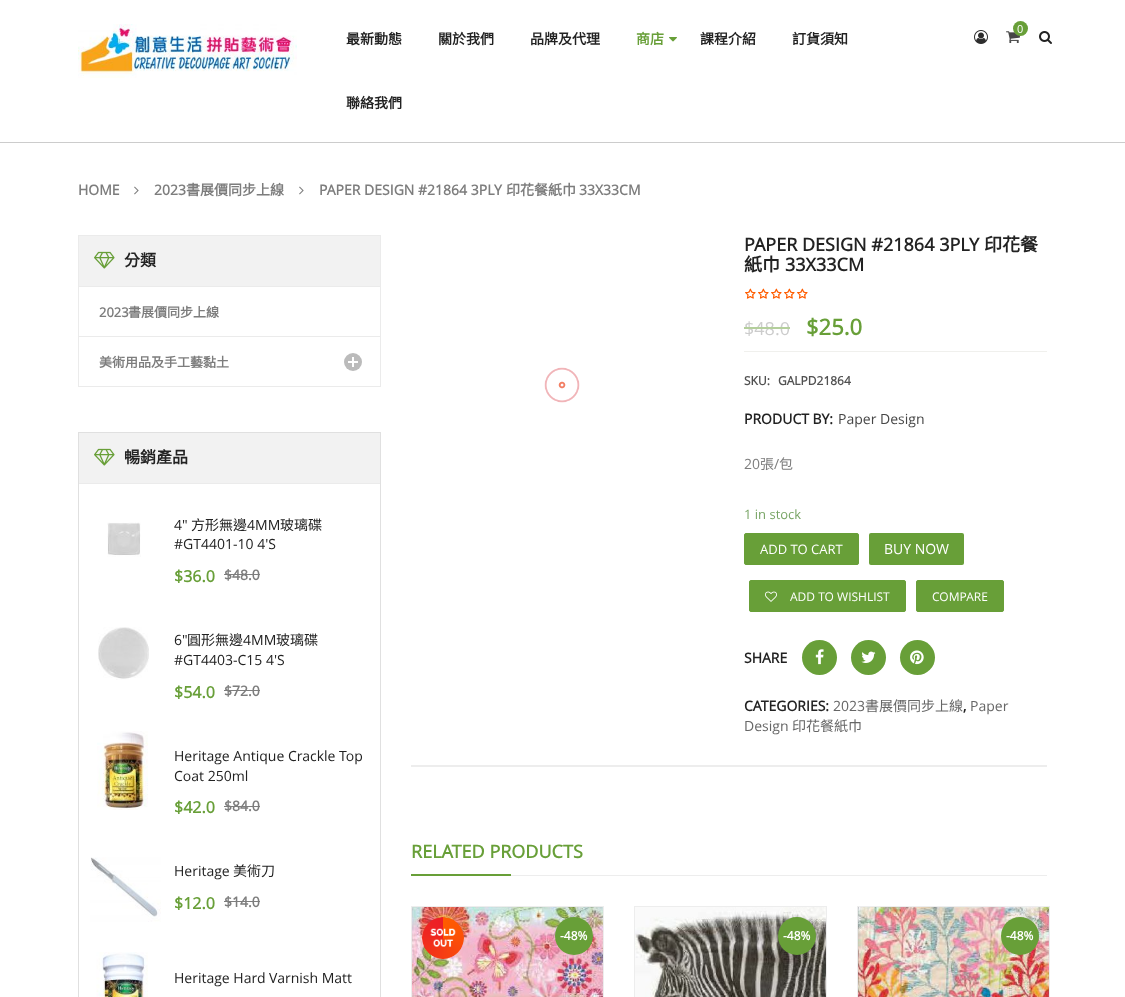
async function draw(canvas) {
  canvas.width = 1125
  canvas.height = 997
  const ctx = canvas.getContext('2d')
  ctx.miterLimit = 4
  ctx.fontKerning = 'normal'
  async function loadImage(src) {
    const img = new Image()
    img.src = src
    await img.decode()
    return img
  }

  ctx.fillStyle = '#fff'
  ctx.fillRect(0, 0, 1125, 997)
  ctx.fillStyle = '#ccc'
  ctx.fillRect(0, 142, 1125, 1)
  ctx.drawImage(await loadImage('image0.png'), 78, 24, 219, 54)
  ctx.font = 'bold 14px Noto Sans CJK TC'
  ctx.fillStyle = '#222'
  ctx.fillText('最新動態', 346, 44)
  ctx.fillText('關於我們', 438, 44)
  ctx.fillText('品牌及代理', 530, 44)
  ctx.fillStyle = '#689f38'
  ctx.fillText('商店', 636, 44)
  ctx.drawImage(await loadImage('image1.png'), 669, 37, 8, 5)
  ctx.fillStyle = '#222'
  ctx.fillText('課程介紹', 700, 44)
  ctx.fillText('訂貨須知', 792, 44)
  ctx.fillText('聯絡我們', 346, 108)
  ctx.drawImage(await loadImage('image2.png'), 974, 30, 14, 14)
  ctx.drawImage(await loadImage('image3.png'), 1006, 31, 14, 13)
  ctx.fillStyle = '#689f38'
  ctx.beginPath()
  ctx.arc(1020.5, 28.5, 7.5, 0, 2 * Math.PI)
  ctx.fill()
  ctx.font = '11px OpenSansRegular'
  ctx.fillStyle = '#fff'
  ctx.fillText('0', 1017, 33)
  ctx.drawImage(await loadImage('image4.png'), 1039, 31, 13, 13)
  ctx.font = 'bold 14px OpenSansRegular'
  ctx.fillStyle = '#7d7d7d'
  ctx.fillText('HOME', 78, 195)
  ctx.drawImage(await loadImage('image5.png'), 134, 186, 5, 9)
  ctx.fillText('2023', 154, 195)
  ctx.font = 'bold 14px Noto Sans CJK TC'
  ctx.fillText('書展價同步上線', 186, 195)
  ctx.drawImage(await loadImage('image5.png'), 299, 186, 5, 9)
  ctx.font = 'bold 14px OpenSansRegular'
  ctx.fillText('PAPER DESIGN #21864 3PLY', 319, 195)
  ctx.font = 'bold 14px Noto Sans CJK TC'
  ctx.fillText('印花餐紙巾', 506, 195)
  ctx.font = 'bold 14px OpenSansRegular'
  ctx.fillText('33X33CM', 579, 195)
  ctx.strokeStyle = '#ebebeb'
  ctx.strokeRect(78.5, 235.5, 302, 151)
  ctx.fillStyle = '#f2f2f2'
  ctx.fillRect(79, 236, 301, 50)
  ctx.drawImage(await loadImage('image6.png'), 94, 251, 21, 18)
  ctx.font = 'bold 16px Noto Sans CJK TC'
  ctx.fillStyle = '#222'
  ctx.fillText('分類', 124, 266)
  ctx.fillStyle = '#ebebeb'
  ctx.fillRect(79, 286, 301, 1)
  ctx.font = 'bold 13px OpenSansRegular'
  ctx.fillStyle = '#7d7d7d'
  ctx.fillText('2023', 99, 317)
  ctx.font = 'bold 13px Noto Sans CJK TC'
  ctx.fillText('書展價同步上線', 128, 317)
  ctx.fillStyle = '#ebebeb'
  ctx.fillRect(79, 336, 301, 1)
  ctx.fillStyle = '#7d7d7d'
  ctx.fillText('美術用品及手工藝黏土', 99, 367)
  ctx.fillStyle = '#bbb'
  ctx.beginPath()
  ctx.arc(353, 362, 9, 0, 2 * Math.PI)
  ctx.fill()
  ctx.fillStyle = '#fff'
  ctx.fillRect(348, 361, 10, 2)
  ctx.fillRect(352, 357, 2, 10)
  ctx.strokeStyle = '#e0e0e0'
  ctx.strokeRect(78.5, 432.5, 302, 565)
  ctx.fillStyle = '#f2f2f2'
  ctx.fillRect(79, 433, 301, 50)
  ctx.drawImage(await loadImage('image6.png'), 94, 448, 21, 18)
  ctx.font = 'bold 16px Noto Sans CJK TC'
  ctx.fillStyle = '#222'
  ctx.fillText('暢銷產品', 124, 463)
  ctx.fillStyle = '#ebebeb'
  ctx.fillRect(79, 483, 301, 1)
  ctx.drawImage(await loadImage('image7.png'), 107, 522, 34, 35)
  ctx.font = '14px OpenSansRegular'
  ctx.fillStyle = '#222'
  ctx.fillText('4"', 174, 530)
  ctx.font = '14px Noto Sans CJK TC'
  ctx.fillText('方形無邊', 191, 530)
  ctx.font = '14px OpenSansRegular'
  ctx.fillText('4MM', 247, 530)
  ctx.font = '14px Noto Sans CJK TC'
  ctx.fillText('玻璃碟', 280, 530)
  ctx.font = '14px OpenSansRegular'
  ctx.fillText('#GT4401-10 4\'S', 174, 549)
  ctx.font = 'bold 16px OpenSansRegular'
  ctx.fillStyle = '#689f38'
  ctx.fillText('$36.0', 174, 582)
  ctx.font = 'bold 14px OpenSansRegular'
  ctx.fillStyle = '#7d7d7d'
  ctx.fillText('$48.0', 224, 580)
  ctx.fillRect(224, 574, 36, 1)
  ctx.drawImage(await loadImage('image8.png'), 98, 627, 51, 53)
  ctx.font = '14px OpenSansRegular'
  ctx.fillStyle = '#222'
  ctx.fillText('6"', 174, 645)
  ctx.font = '14px Noto Sans CJK TC'
  ctx.fillText('圓形無邊', 187, 645)
  ctx.font = '14px OpenSansRegular'
  ctx.fillText('4MM', 243, 645)
  ctx.font = '14px Noto Sans CJK TC'
  ctx.fillText('玻璃碟', 276, 645)
  ctx.font = '14px OpenSansRegular'
  ctx.fillText('#GT4403-C15 4\'S', 174, 665)
  ctx.font = 'bold 16px OpenSansRegular'
  ctx.fillStyle = '#689f38'
  ctx.fillText('$54.0', 174, 698)
  ctx.font = 'bold 14px OpenSansRegular'
  ctx.fillStyle = '#7d7d7d'
  ctx.fillText('$72.0', 224, 696)
  ctx.fillRect(224, 690, 36, 1)
  ctx.drawImage(await loadImage('image9.png'), 97, 731, 51, 79)
  ctx.font = '14px OpenSansRegular'
  ctx.fillStyle = '#222'
  ctx.fillText('Heritage Antique Crackle Top', 174, 761)
  ctx.fillText('Coat 250ml', 174, 781)
  ctx.font = 'bold 16px OpenSansRegular'
  ctx.fillStyle = '#689f38'
  ctx.fillText('$42.0', 174, 813)
  ctx.font = 'bold 14px OpenSansRegular'
  ctx.fillStyle = '#7d7d7d'
  ctx.fillText('$84.0', 224, 811)
  ctx.fillRect(224, 806, 36, 1)
  ctx.drawImage(await loadImage('image10.png'), 90, 857, 71, 65)
  ctx.font = '14px OpenSansRegular'
  ctx.fillStyle = '#222'
  ctx.fillText('Heritage', 174, 876)
  ctx.font = '14px Noto Sans CJK TC'
  ctx.fillText('美術刀', 233, 876)
  ctx.font = 'bold 16px OpenSansRegular'
  ctx.fillStyle = '#689f38'
  ctx.fillText('$12.0', 174, 909)
  ctx.font = 'bold 14px OpenSansRegular'
  ctx.fillStyle = '#7d7d7d'
  ctx.fillText('$14.0', 224, 907)
  ctx.fillRect(224, 901, 36, 1)
  ctx.drawImage(await loadImage('image11.png'), 96, 952, 52, 45)
  ctx.font = '14px OpenSansRegular'
  ctx.fillStyle = '#222'
  ctx.fillText('Heritage Hard Varnish Matt', 174, 983)
  ctx.drawImage(await loadImage('image12.png'), 544, 367, 36, 36)
  ctx.font = 'bold 18px OpenSansRegular'
  ctx.fillText('PAPER DESIGN #21864 3PLY', 744, 251)
  ctx.font = 'bold 18px Noto Sans CJK TC'
  ctx.fillText('印花餐', 984, 251)
  ctx.fillText('紙巾', 744, 271)
  ctx.font = 'bold 18px OpenSansRegular'
  ctx.fillText('33X33CM', 785, 271)
  ctx.drawImage(await loadImage('image13.png'), 745, 288, 63, 11)
  ctx.font = '18px OpenSansRegular'
  ctx.fillStyle = '#ccc'
  ctx.fillText('$48.0', 744, 335)
  ctx.fillStyle = '#b4cf9c'
  ctx.fillRect(744, 327, 46, 2)
  ctx.font = 'bold 22px OpenSansRegular'
  ctx.fillStyle = '#689f38'
  ctx.fillText('$25.0', 806, 335)
  ctx.fillStyle = '#f0f0ed'
  ctx.fillRect(744, 351, 303, 1)
  ctx.font = 'bold 12px OpenSansRegular'
  ctx.fillStyle = '#525252'
  ctx.fillText('SKU:', 744, 385)
  ctx.fillText('GALPD21864', 778, 385)
  ctx.font = 'bold 14px OpenSansRegular'
  ctx.fillStyle = '#222'
  ctx.fillText('PRODUCT BY:', 744, 424)
  ctx.font = '14px OpenSansRegular'
  ctx.fillStyle = '#464646'
  ctx.fillText('Paper Design', 838, 424)
  ctx.fillStyle = '#7d7d7d'
  ctx.fillText('20', 744, 469)
  ctx.font = '14px Noto Sans CJK TC'
  ctx.fillText('張', 760, 469)
  ctx.font = '14px OpenSansRegular'
  ctx.fillText('/', 774, 469)
  ctx.font = '14px Noto Sans CJK TC'
  ctx.fillText('包', 779, 469)
  ctx.font = '13px OpenSansRegular'
  ctx.fillStyle = '#77a464'
  ctx.fillText('1 in stock', 744, 519)
  ctx.fillStyle = '#689f38'
  ctx.beginPath()
  ctx.roundRect(744.5, 533.5, 114, 31, 1.5)
  ctx.fill()
  ctx.strokeStyle = '#689f38'
  ctx.stroke()
  ctx.fillStyle = '#fff'
  ctx.fillText('ADD TO CART', 760, 554)
  ctx.fillStyle = '#689f38'
  ctx.beginPath()
  ctx.roundRect(869, 533, 95, 32, 2)
  ctx.fill()
  ctx.font = '14px OpenSansRegular'
  ctx.fillStyle = '#fff'
  ctx.fillText('BUY NOW', 884, 554)
  ctx.fillStyle = '#689f38'
  ctx.beginPath()
  ctx.roundRect(749.5, 580.5, 156, 31, 1.5)
  ctx.fill()
  ctx.stroke()
  ctx.drawImage(await loadImage('image14.png'), 765, 591, 12, 11)
  ctx.font = '12px OpenSansRegular'
  ctx.fillStyle = '#fff'
  ctx.fillText('ADD TO WISHLIST', 790, 601)
  ctx.fillStyle = '#689f38'
  ctx.beginPath()
  ctx.roundRect(916.5, 580.5, 87, 31, 1.5)
  ctx.fill()
  ctx.stroke()
  ctx.fillStyle = '#fff'
  ctx.fillText('COMPARE', 932, 601)
  ctx.font = 'bold 14px OpenSansRegular'
  ctx.fillStyle = '#222'
  ctx.fillText('SHARE', 744, 663)
  ctx.fillStyle = '#689f38'
  ctx.beginPath()
  ctx.arc(819.5, 657.5, 17.5, 0, 2 * Math.PI)
  ctx.fill()
  ctx.drawImage(await loadImage('image15.png'), 815, 649, 9, 16)
  ctx.beginPath()
  ctx.arc(868.5, 657.5, 17.5, 0, 2 * Math.PI)
  ctx.fill()
  ctx.drawImage(await loadImage('image16.png'), 861, 651, 15, 12)
  ctx.beginPath()
  ctx.arc(917.5, 657.5, 17.5, 0, 2 * Math.PI)
  ctx.fill()
  ctx.drawImage(await loadImage('image17.png'), 910, 650, 14, 15)
  ctx.fillStyle = '#222'
  ctx.fillText('CATEGORIES:', 744, 711)
  ctx.font = '14px OpenSansRegular'
  ctx.fillStyle = '#666'
  ctx.fillText('2023', 833, 711)
  ctx.font = '14px Noto Sans CJK TC'
  ctx.fillText('書展價同步上線', 865, 711)
  ctx.font = 'bold 14px OpenSansRegular'
  ctx.fillStyle = '#222'
  ctx.fillText(',', 963, 711)
  ctx.font = '14px OpenSansRegular'
  ctx.fillStyle = '#666'
  ctx.fillText('Paper', 970, 711)
  ctx.fillText('Design', 744, 731)
  ctx.font = '14px Noto Sans CJK TC'
  ctx.fillText('印花餐紙巾', 792, 731)
  ctx.fillStyle = '#ededed'
  ctx.fillRect(411, 765, 636, 2)
  ctx.fillRect(511, 875, 536, 1)
  ctx.font = 'bold 18px OpenSansRegular'
  ctx.fillStyle = '#689f38'
  ctx.fillText('RELATED PRODUCTS', 411, 858)
  ctx.fillRect(411, 874, 100, 2)
  ctx.strokeStyle = '#ededed'
  ctx.strokeRect(411.5, 906.5, 192, 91)
  ctx.drawImage(await loadImage('image18.png'), 412, 907, 191, 90)
  ctx.drawImage(await loadImage('image19.png'), 422, 917, 42, 42)
  ctx.beginPath()
  ctx.arc(574, 936, 19, 0, 2 * Math.PI)
  ctx.fill()
  ctx.font = 'bold 12px OpenSansRegular'
  ctx.fillStyle = '#fff'
  ctx.fillText('-48%', 560, 940)
  ctx.strokeRect(634.5, 906.5, 192, 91)
  ctx.drawImage(await loadImage('image20.png'), 635, 907, 191, 90)
  ctx.fillStyle = '#689f38'
  ctx.beginPath()
  ctx.arc(797, 936, 19, 0, 2 * Math.PI)
  ctx.fill()
  ctx.fillStyle = '#fff'
  ctx.fillText('-48%', 783, 940)
  ctx.strokeRect(857.5, 906.5, 192, 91)
  ctx.drawImage(await loadImage('image21.png'), 858, 907, 191, 90)
  ctx.fillStyle = '#689f38'
  ctx.beginPath()
  ctx.arc(1020, 936, 19, 0, 2 * Math.PI)
  ctx.fill()
  ctx.fillStyle = '#fff'
  ctx.fillText('-48%', 1006, 940)
}

draw(document.querySelector('canvas'))
